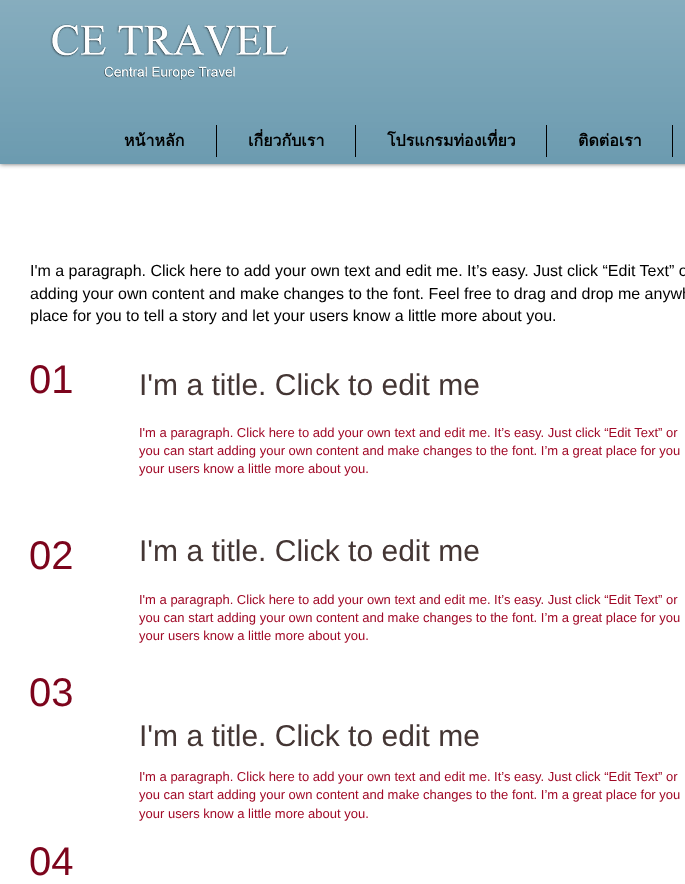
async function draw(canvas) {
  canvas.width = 685
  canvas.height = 884
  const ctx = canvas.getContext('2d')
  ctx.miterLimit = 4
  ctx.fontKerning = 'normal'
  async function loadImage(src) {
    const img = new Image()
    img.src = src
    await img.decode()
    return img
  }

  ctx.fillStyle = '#fff'
  ctx.fillRect(0, 0, 685, 884)
  ctx.fillStyle = '#00000099'
  ctx.filter = 'blur(2.5px)'
  ctx.beginPath()
  ctx.rect(0, 125, 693, 39)
  ctx.fill()
  ctx.filter = 'none'
  ctx.fillStyle = '#5d91a8'
  ctx.fillRect(0, 0, 685, 164)
  ctx.drawImage(await loadImage('image0.png'), 0, 0, 685, 164)
  ctx.drawImage(await loadImage('image1.png'), 50, 24, 239, 56)
  ctx.font = 'bold 16px Loma'
  ctx.fillStyle = '#000'
  ctx.fillText('หน้าหลัก', 124, 146)
  ctx.fillRect(216, 125, 1, 32)
  ctx.fillText('เกี่ยวกับเรา', 248, 146)
  ctx.fillRect(355, 125, 1, 32)
  ctx.fillText('โปรแกรมท่องเที่ยว', 387, 146)
  ctx.fillRect(546, 125, 1, 32)
  ctx.fillText('ติดต่อเรา', 578, 146)
  ctx.fillRect(672, 125, 1, 32)
  ctx.font = '16px Liberation Sans'
  ctx.fillText('I\'m a paragraph. Click here to add your own text and edit me. It’s easy. Just click “Edit Text” o', 30, 276)
  ctx.fillText('adding your own content and make changes to the font. Feel free to drag and drop me anywh', 30, 299)
  ctx.fillText('place for you to tell a story and let your users know a little more about you.', 30, 321)
  ctx.font = '40px Liberation Sans'
  ctx.fillStyle = '#7c041c'
  ctx.fillText('01', 29, 393)
  ctx.font = '30px Liberation Sans'
  ctx.fillStyle = '#443634'
  ctx.fillText('I\'m a title. Click to edit me', 139, 395)
  ctx.font = '13px Liberation Sans'
  ctx.fillStyle = '#a00826'
  ctx.fillText('I\'m a paragraph. Click here to add your own text and edit me. It’s easy. Just click “Edit Text” or', 139, 437)
  ctx.fillText('you can start adding your own content and make changes to the font. I’m a great place for you', 139, 455)
  ctx.fillText('your users know a little more about you.', 139, 473)
  ctx.font = '40px Liberation Sans'
  ctx.fillStyle = '#7c041c'
  ctx.fillText('02', 29, 569)
  ctx.font = '30px Liberation Sans'
  ctx.fillStyle = '#443634'
  ctx.fillText('I\'m a title. Click to edit me', 139, 561)
  ctx.font = '13px Liberation Sans'
  ctx.fillStyle = '#a00826'
  ctx.fillText('I\'m a paragraph. Click here to add your own text and edit me. It’s easy. Just click “Edit Text” or', 139, 604)
  ctx.fillText('you can start adding your own content and make changes to the font. I’m a great place for you', 139, 622)
  ctx.fillText('your users know a little more about you.', 139, 640)
  ctx.font = '40px Liberation Sans'
  ctx.fillStyle = '#7c041c'
  ctx.fillText('03', 29, 706)
  ctx.font = '30px Liberation Sans'
  ctx.fillStyle = '#443634'
  ctx.fillText('I\'m a title. Click to edit me', 139, 746)
  ctx.font = '13px Liberation Sans'
  ctx.fillStyle = '#a00826'
  ctx.fillText('I\'m a paragraph. Click here to add your own text and edit me. It’s easy. Just click “Edit Text” or', 139, 781)
  ctx.fillText('you can start adding your own content and make changes to the font. I’m a great place for you', 139, 799)
  ctx.fillText('your users know a little more about you.', 139, 818)
  ctx.font = '40px Liberation Sans'
  ctx.fillStyle = '#7c041c'
  ctx.fillText('04', 29, 875)
}

draw(document.querySelector('canvas'))
